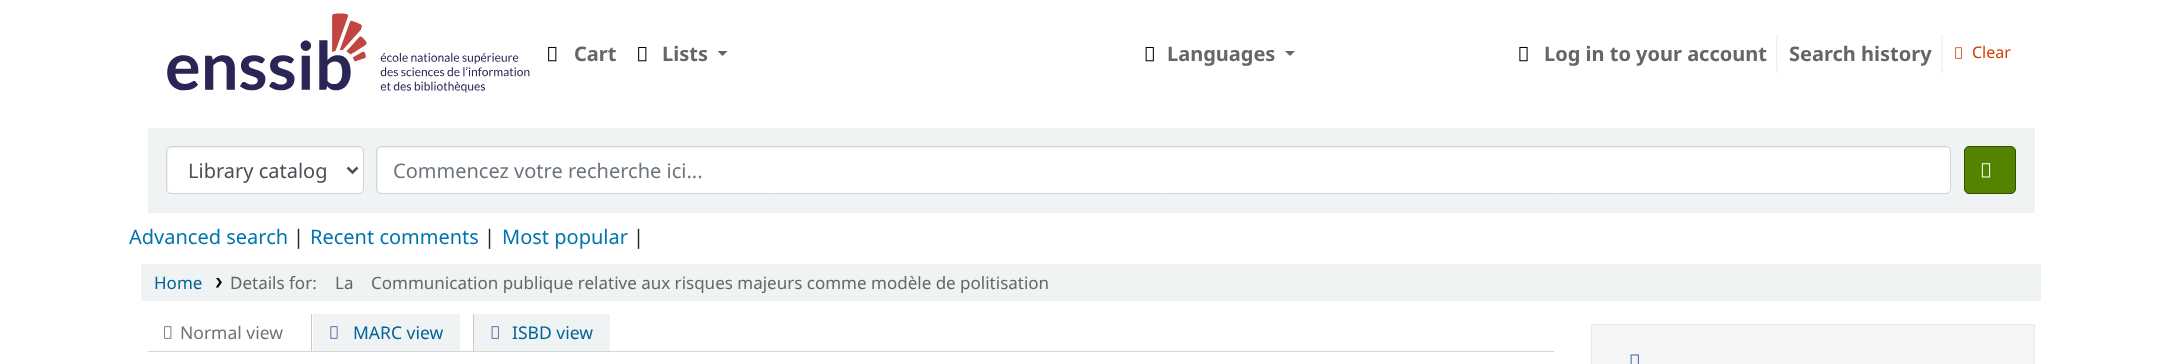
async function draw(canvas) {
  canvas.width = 2182
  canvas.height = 364
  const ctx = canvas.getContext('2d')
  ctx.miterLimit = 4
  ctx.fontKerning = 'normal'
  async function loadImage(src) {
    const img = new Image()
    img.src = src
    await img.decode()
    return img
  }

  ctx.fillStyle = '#fff'
  ctx.fillRect(0, 0, 2182, 364)
  ctx.drawImage(await loadImage('image0.png'), 167, 13, 363, 80)
  ctx.drawImage(await loadImage('image1.png'), 548, 46, 9, 16)
  ctx.font = 'bold 20px Noto Sans'
  ctx.fillStyle = '#666'
  ctx.fillText('Cart', 574, 61)
  ctx.drawImage(await loadImage('image1.png'), 638, 46, 9, 16)
  ctx.fillText('Lists', 662, 61)
  ctx.beginPath()
  ctx.moveTo(717.5, 51)
  ctx.lineTo(727.5, 51)
  ctx.lineTo(722.5, 56)
  ctx.closePath()
  ctx.fill()
  ctx.drawImage(await loadImage('image2.png'), 1145, 46, 9, 16)
  ctx.fillText('Languages', 1167, 61)
  ctx.beginPath()
  ctx.moveTo(1285, 51)
  ctx.lineTo(1295, 51)
  ctx.lineTo(1290, 56)
  ctx.closePath()
  ctx.fill()
  ctx.drawImage(await loadImage('image3.png'), 1519, 46, 9, 16)
  ctx.fillText('Log in to your account', 1544, 61)
  ctx.fillStyle = '#eee'
  ctx.fillRect(1776, 35, 3, 1)
  ctx.fillStyle = '#fcf9fc'
  ctx.fillRect(1778, 35, 1, 38)
  ctx.fillStyle = '#eee'
  ctx.fillRect(1776, 71, 3, 1)
  ctx.fillRect(1776, 35, 1, 38)
  ctx.fillStyle = '#666'
  ctx.fillText('Search history', 1789, 61)
  ctx.fillStyle = '#eee'
  ctx.fillRect(1941, 35, 3, 1)
  ctx.fillStyle = '#fcf9fc'
  ctx.fillRect(1943, 35, 1, 38)
  ctx.fillStyle = '#eee'
  ctx.fillRect(1941, 71, 3, 1)
  ctx.fillRect(1941, 35, 1, 38)
  ctx.drawImage(await loadImage('image4.png'), 1955, 47, 7, 12)
  ctx.font = '16px Noto Sans'
  ctx.fillStyle = '#d43c00'
  ctx.fillText('Clear', 1972, 58)
  ctx.fillStyle = '#f0f3f3'
  ctx.fillRect(148, 128, 1887, 85)
  ctx.fillStyle = '#fff'
  ctx.beginPath()
  ctx.roundRect(168, 148, 195, 45, 4)
  ctx.fill()
  ctx.beginPath()
  ctx.roundRect(166.5, 146.5, 197, 47, 4.5)
  ctx.strokeStyle = '#ced4da'
  ctx.stroke()
  ctx.beginPath()
  ctx.moveTo(347.5, 167.5)
  ctx.lineTo(352.5, 172.5)
  ctx.lineTo(357.5, 167.5)
  ctx.strokeStyle = '#495057'
  ctx.lineWidth = 2.5
  ctx.stroke()
  ctx.font = '20px Noto Sans'
  ctx.fillStyle = '#495057'
  ctx.fillText('Library catalog', 188, 178)
  ctx.fillStyle = '#fff'
  ctx.beginPath()
  ctx.roundRect(378, 148, 1572, 45, 4)
  ctx.fill()
  ctx.beginPath()
  ctx.roundRect(376.5, 146.5, 1574, 47, 4.5)
  ctx.strokeStyle = '#ced4da'
  ctx.lineWidth = 1
  ctx.stroke()
  ctx.fillStyle = '#6c757d'
  ctx.fillText('Commencez votre recherche ici...', 393, 178)
  ctx.fillStyle = '#548300'
  ctx.beginPath()
  ctx.roundRect(1964.5, 146.5, 51, 47, 4.5)
  ctx.fill()
  ctx.strokeStyle = '#335000'
  ctx.stroke()
  ctx.drawImage(await loadImage('image5.png'), 1981, 163, 10, 15)
  ctx.fillStyle = '#0074ad'
  ctx.fillText('Advanced search', 129, 244)
  ctx.fillStyle = '#212529'
  ctx.fillText('|', 293, 244)
  ctx.fillStyle = '#0074ad'
  ctx.fillText('Recent comments', 310, 244)
  ctx.fillStyle = '#212529'
  ctx.fillText('|', 484, 244)
  ctx.fillStyle = '#0074ad'
  ctx.fillText('Most popular', 502, 244)
  ctx.fillStyle = '#212529'
  ctx.fillText('|', 633, 244)
  ctx.fillStyle = '#f0f3f3'
  ctx.fillRect(141, 264, 1900, 37)
  ctx.font = '17px Noto Sans'
  ctx.fillStyle = '#006394'
  ctx.fillText('Home', 154, 289)
  ctx.drawImage(await loadImage('image6.png'), 215, 278, 7, 10)
  ctx.fillStyle = '#666'
  ctx.fillText('Details for:', 230, 289)
  ctx.fillText('La', 335, 289)
  ctx.fillText('Communication publique relative aux risques majeurs comme modèle de politisation', 371, 289)
  ctx.fillStyle = '#d6d6d6'
  ctx.fillRect(148, 351, 1406, 1)
  ctx.drawImage(await loadImage('image7.png'), 164, 326, 8, 13)
  ctx.font = '17.5px Noto Sans'
  ctx.fillStyle = '#727272'
  ctx.fillText('Normal view', 180, 339)
  ctx.fillStyle = '#f0f3f3'
  ctx.fillRect(313, 314, 147, 37)
  ctx.fillStyle = '#c9c9c9'
  ctx.fillRect(311, 314, 1, 37)
  ctx.drawImage(await loadImage('image8.png'), 330, 326, 8, 13)
  ctx.fillStyle = '#006394'
  ctx.fillText('MARC view', 353, 339)
  ctx.fillStyle = '#f0f3f3'
  ctx.fillRect(474, 314, 136, 37)
  ctx.fillStyle = '#c9c9c9'
  ctx.fillRect(473, 314, 1, 37)
  ctx.drawImage(await loadImage('image9.png'), 491, 326, 8, 13)
  ctx.fillStyle = '#006394'
  ctx.fillText('ISBD view', 512, 339)
  ctx.fillStyle = '#f5f5f5'
  ctx.beginPath()
  ctx.rect(1591.5, 324.5, 443, 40)
  ctx.fill()
  ctx.strokeStyle = '#e8e8e8'
  ctx.stroke()
  ctx.drawImage(await loadImage('image10.png'), 1630, 354, 9, 10)
}

draw(document.querySelector('canvas'))
